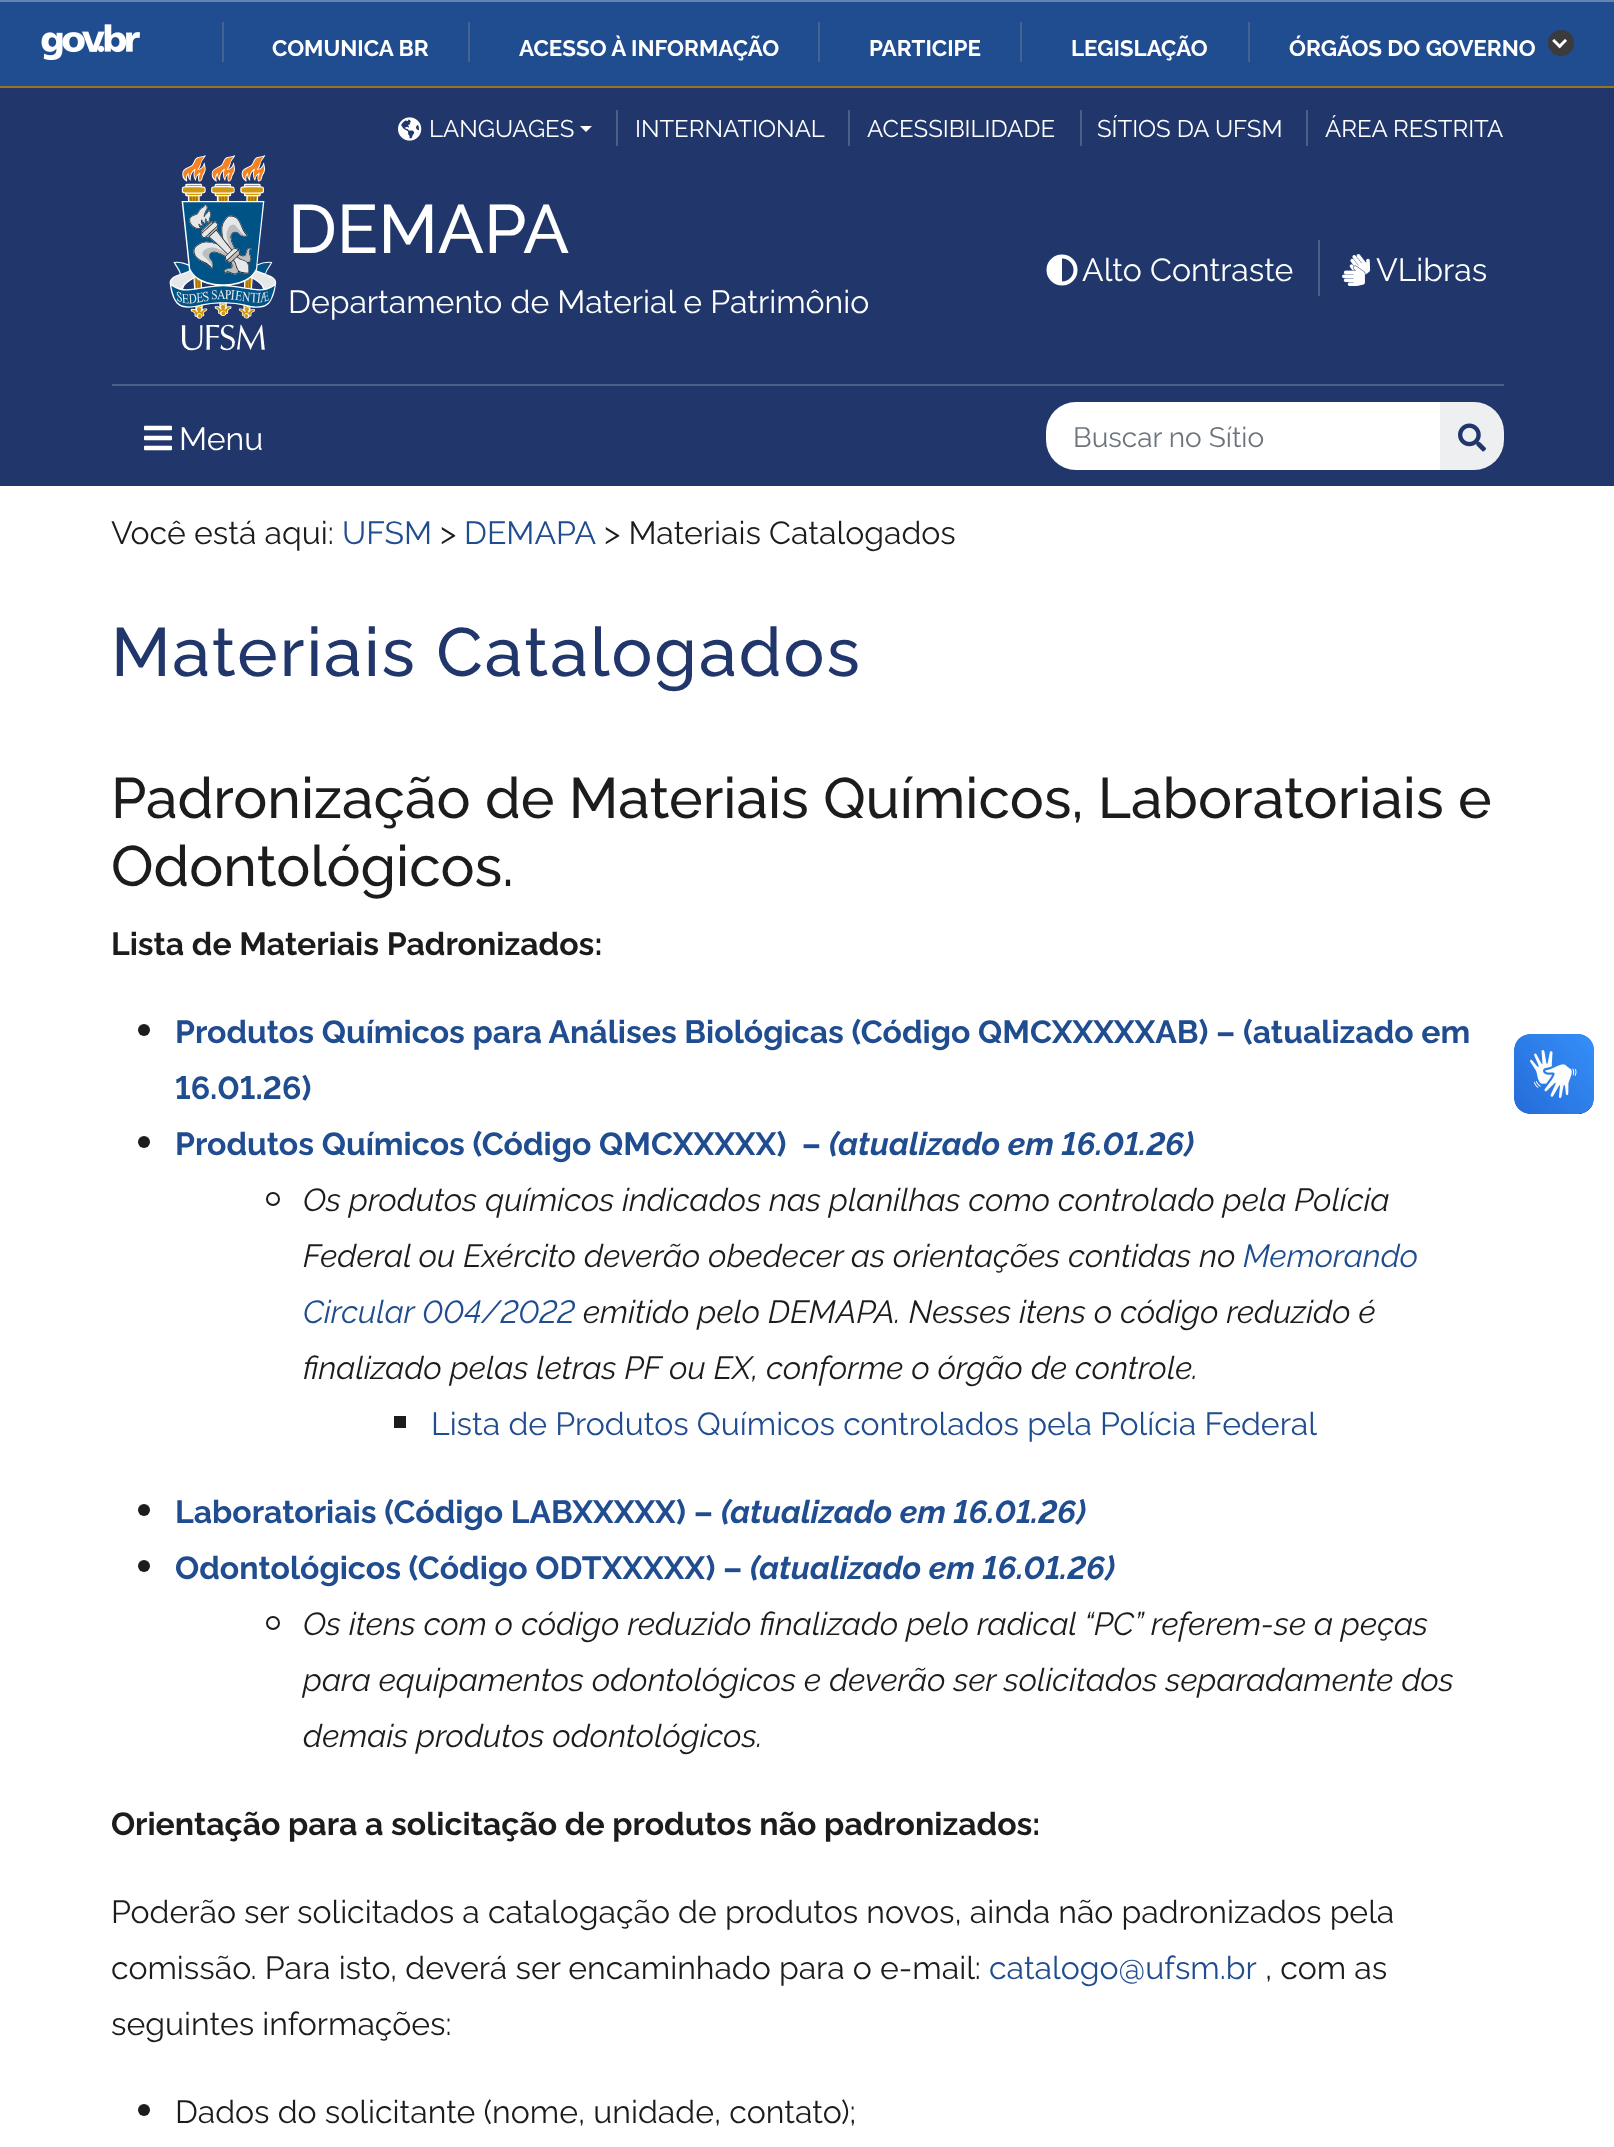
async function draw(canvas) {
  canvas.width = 1614
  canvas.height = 2147
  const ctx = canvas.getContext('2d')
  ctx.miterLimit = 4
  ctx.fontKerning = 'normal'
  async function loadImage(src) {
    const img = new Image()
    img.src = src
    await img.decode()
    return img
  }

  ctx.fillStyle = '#fff'
  ctx.fillRect(0, 0, 1614, 2147)
  ctx.fillStyle = '#204c90'
  ctx.fillRect(0, 2, 1614, 84)
  ctx.fillStyle = '#6382b1'
  ctx.fillRect(0, 0, 1614, 2)
  ctx.drawImage(await loadImage('image0.png'), 41, 24, 99, 36)
  ctx.fillStyle = '#446392'
  ctx.fillRect(222, 22, 2, 40)
  ctx.font = 'bold 22.4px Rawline'
  ctx.fillStyle = '#fff'
  ctx.fillText('COMUNICA BR', 272, 56)
  ctx.fillStyle = '#446392'
  ctx.fillRect(468, 22, 2, 40)
  ctx.fillStyle = '#fff'
  ctx.fillText('ACESSO À INFORMAÇÃO', 519, 56)
  ctx.fillStyle = '#446392'
  ctx.fillRect(818, 22, 2, 40)
  ctx.fillStyle = '#fff'
  ctx.fillText('PARTICIPE', 869, 56)
  ctx.fillStyle = '#446392'
  ctx.fillRect(1020, 22, 2, 40)
  ctx.fillStyle = '#fff'
  ctx.fillText('LEGISLAÇÃO', 1071, 56)
  ctx.fillStyle = '#446392'
  ctx.fillRect(1248, 22, 2, 40)
  ctx.fillStyle = '#fff'
  ctx.fillText('ÓRGÃOS DO GOVERNO', 1289, 56)
  ctx.fillStyle = '#3b3b3b'
  ctx.beginPath()
  ctx.arc(1561, 43, 13, 0, 2 * Math.PI)
  ctx.fill()
  ctx.drawImage(await loadImage('image1.png'), 1552, 39, 15, 10)
  ctx.fillStyle = '#21376b'
  ctx.fillRect(0, 88, 1614, 398)
  ctx.fillStyle = '#997520'
  ctx.fillRect(0, 86, 1614, 2)
  ctx.drawImage(await loadImage('image2.png'), 398, 117, 24, 24)
  ctx.font = '24px Rawline'
  ctx.fillStyle = '#fff'
  ctx.fillText('LANGUAGES', 429, 137)
  ctx.beginPath()
  ctx.moveTo(580, 126)
  ctx.lineTo(592, 126)
  ctx.lineTo(586, 132)
  ctx.closePath()
  ctx.fill()
  ctx.fillStyle = '#4d5f89'
  ctx.fillRect(616, 110, 2, 36)
  ctx.fillStyle = '#fff'
  ctx.fillText('INTERNATIONAL', 635, 137)
  ctx.fillStyle = '#4d5f89'
  ctx.fillRect(848, 110, 2, 36)
  ctx.fillStyle = '#fff'
  ctx.fillText('ACESSIBILIDADE', 867, 137)
  ctx.fillStyle = '#4d5f89'
  ctx.fillRect(1080, 110, 2, 36)
  ctx.fillStyle = '#fff'
  ctx.fillText('SÍTIOS DA UFSM', 1097, 137)
  ctx.fillStyle = '#4d5f89'
  ctx.fillRect(1306, 110, 2, 36)
  ctx.fillStyle = '#fff'
  ctx.fillText('ÁREA RESTRITA', 1325, 137)
  ctx.fillStyle = '#4d5f89'
  ctx.fillRect(112, 384, 1392, 2)
  ctx.drawImage(await loadImage('image3.png'), 169, 155, 108, 196)
  ctx.font = '500 68.25px Rawline'
  ctx.fillStyle = '#fff'
  ctx.fillText('DEMAPA', 288, 253)
  ctx.font = '32px Rawline'
  ctx.fillText('Departamento de Material e Patrimônio', 288, 313)
  ctx.drawImage(await loadImage('image4.png'), 1046, 254, 32, 32)
  ctx.fillText('Alto Contraste', 1082, 281)
  ctx.fillStyle = '#4d5f89'
  ctx.fillRect(1318, 240, 2, 56)
  ctx.drawImage(await loadImage('image5.png'), 1342, 254, 29, 32)
  ctx.fillStyle = '#fff'
  ctx.fillText('VLibras', 1376, 281)
  ctx.drawImage(await loadImage('image6.png'), 144, 425, 28, 26)
  ctx.fillText('Menu', 179, 450)
  ctx.save()
  ctx.beginPath()
  ctx.roundRect(1046, 402, 458, 68, 30)
  ctx.clip()
  ctx.beginPath()
  ctx.roundRect(1044, 402, 398, 68, [8, 0, 0, 8])
  ctx.fill()
  ctx.restore()
  ctx.font = '28px Rawline'
  ctx.fillStyle = '#6c757d'
  ctx.fillText('Buscar no Sítio', 1073, 447)
  ctx.fillStyle = '#eeeff1'
  ctx.beginPath()
  ctx.roundRect(1440, 402, 64, 68, [0, 30, 30, 0])
  ctx.fill()
  ctx.drawImage(await loadImage('image7.png'), 1458, 423, 28, 29)
  ctx.font = '32px Rawline'
  ctx.fillStyle = '#1c1c1c'
  ctx.fillText('Você está aqui:', 111, 544)
  ctx.fillStyle = '#204c90'
  ctx.fillText('UFSM', 342, 544)
  ctx.fillStyle = '#1c1c1c'
  ctx.fillText('>', 440, 544)
  ctx.fillStyle = '#204c90'
  ctx.fillText('DEMAPA', 464, 544)
  ctx.fillStyle = '#1c1c1c'
  ctx.fillText('> Materiais Catalogados', 604, 544)
  ctx.letterSpacing = '2px'
  ctx.font = '500 68.25px Rawline'
  ctx.fillStyle = '#21376b'
  ctx.fillText('Materiais Catalogados', 111, 676)
  ctx.letterSpacing = '0px'
  ctx.font = '500 56.9px Rawline'
  ctx.fillStyle = '#1c1c1c'
  ctx.fillText('Padronização de Materiais Químicos, Laboratoriais e', 111, 818)
  ctx.fillText('Odontológicos.', 111, 886)
  ctx.font = 'bold 32px Rawline'
  ctx.fillText('Lista de Materiais Padronizados:', 111, 955)
  ctx.beginPath()
  ctx.arc(144, 1030, 6, 0, 2 * Math.PI)
  ctx.fill()
  ctx.fillStyle = '#204c90'
  ctx.fillText('Produtos Químicos para Análises Biológicas (Código QMCXXXXXAB) – (atualizado em', 175, 1043)
  ctx.fillText('16.01.26)', 175, 1099)
  ctx.fillStyle = '#1c1c1c'
  ctx.beginPath()
  ctx.arc(144, 1142, 6, 0, 2 * Math.PI)
  ctx.fill()
  ctx.fillStyle = '#204c90'
  ctx.fillText('Produtos Químicos (Código QMCXXXXX)  –', 175, 1155)
  ctx.font = 'italic bold 32px Rawline'
  ctx.fillText('(atualizado em 16.01.26)', 829, 1155)
  ctx.beginPath()
  ctx.arc(273, 1199, 6, 0, 2 * Math.PI)
  ctx.strokeStyle = '#1c1c1c'
  ctx.lineWidth = 2
  ctx.stroke()
  ctx.font = 'italic 32px Rawline'
  ctx.fillStyle = '#1c1c1c'
  ctx.fillText('Os produtos químicos indicados nas planilhas como controlado pela Polícia', 303, 1211)
  ctx.fillText('Federal ou Exército deverão obedecer as orientações contidas no', 303, 1267)
  ctx.fillStyle = '#204c90'
  ctx.fillText('Memorando', 1243, 1267)
  ctx.fillText('Circular 004/2022', 303, 1323)
  ctx.fillStyle = '#1c1c1c'
  ctx.fillText('emitido pelo DEMAPA. Nesses itens o código reduzido é', 583, 1323)
  ctx.fillText('finalizado pelas letras PF ou EX, conforme o órgão de controle.', 303, 1379)
  ctx.fillRect(394, 1416, 12, 12)
  ctx.font = '32px Rawline'
  ctx.fillStyle = '#204c90'
  ctx.fillText('Lista de Produtos Químicos controlados pela Polícia Federal', 431, 1435)
  ctx.fillStyle = '#1c1c1c'
  ctx.beginPath()
  ctx.arc(144, 1510, 6, 0, 2 * Math.PI)
  ctx.fill()
  ctx.font = 'bold 32px Rawline'
  ctx.fillStyle = '#204c90'
  ctx.fillText('Laboratoriais (Código LABXXXXX) –', 175, 1523)
  ctx.font = 'italic bold 32px Rawline'
  ctx.fillText('(atualizado em 16.01.26)', 721, 1523)
  ctx.fillStyle = '#1c1c1c'
  ctx.beginPath()
  ctx.arc(144, 1566, 6, 0, 2 * Math.PI)
  ctx.fill()
  ctx.font = 'bold 32px Rawline'
  ctx.fillStyle = '#204c90'
  ctx.fillText('Odontológicos (Código ODTXXXXX) –', 175, 1579)
  ctx.font = 'italic bold 32px Rawline'
  ctx.fillText('(atualizado em 16.01.26)', 750, 1579)
  ctx.beginPath()
  ctx.arc(273, 1623, 6, 0, 2 * Math.PI)
  ctx.stroke()
  ctx.font = 'italic 32px Rawline'
  ctx.fillStyle = '#1c1c1c'
  ctx.fillText('Os itens com o código reduzido finalizado pelo radical “PC” referem-se a peças', 303, 1635)
  ctx.fillText('para equipamentos odontológicos e deverão ser solicitados separadamente dos', 303, 1691)
  ctx.fillText('demais produtos odontológicos.', 303, 1747)
  ctx.font = 'bold 32px Rawline'
  ctx.fillText('Orientação para a solicitação de produtos não padronizados:', 111, 1835)
  ctx.font = '32px Rawline'
  ctx.fillText('Poderão ser solicitados a catalogação de produtos novos, ainda não padronizados pela', 111, 1923)
  ctx.fillText('comissão. Para isto, deverá ser encaminhado para o e-mail:', 111, 1979)
  ctx.fillStyle = '#204c90'
  ctx.fillText('catalogo@ufsm.br', 989, 1979)
  ctx.fillStyle = '#1c1c1c'
  ctx.fillText(', com as', 1265, 1979)
  ctx.fillText('seguintes informações:', 111, 2035)
  ctx.beginPath()
  ctx.arc(144, 2110, 6, 0, 2 * Math.PI)
  ctx.fill()
  ctx.fillText('Dados do solicitante (nome, unidade, contato);', 175, 2123)
  ctx.drawImage(await loadImage('image8.png'), 1514, 1034, 80, 80)
  ctx.drawImage(await loadImage('image9.png'), 1514, 1034, 80, 80)
}

draw(document.querySelector('canvas'))
